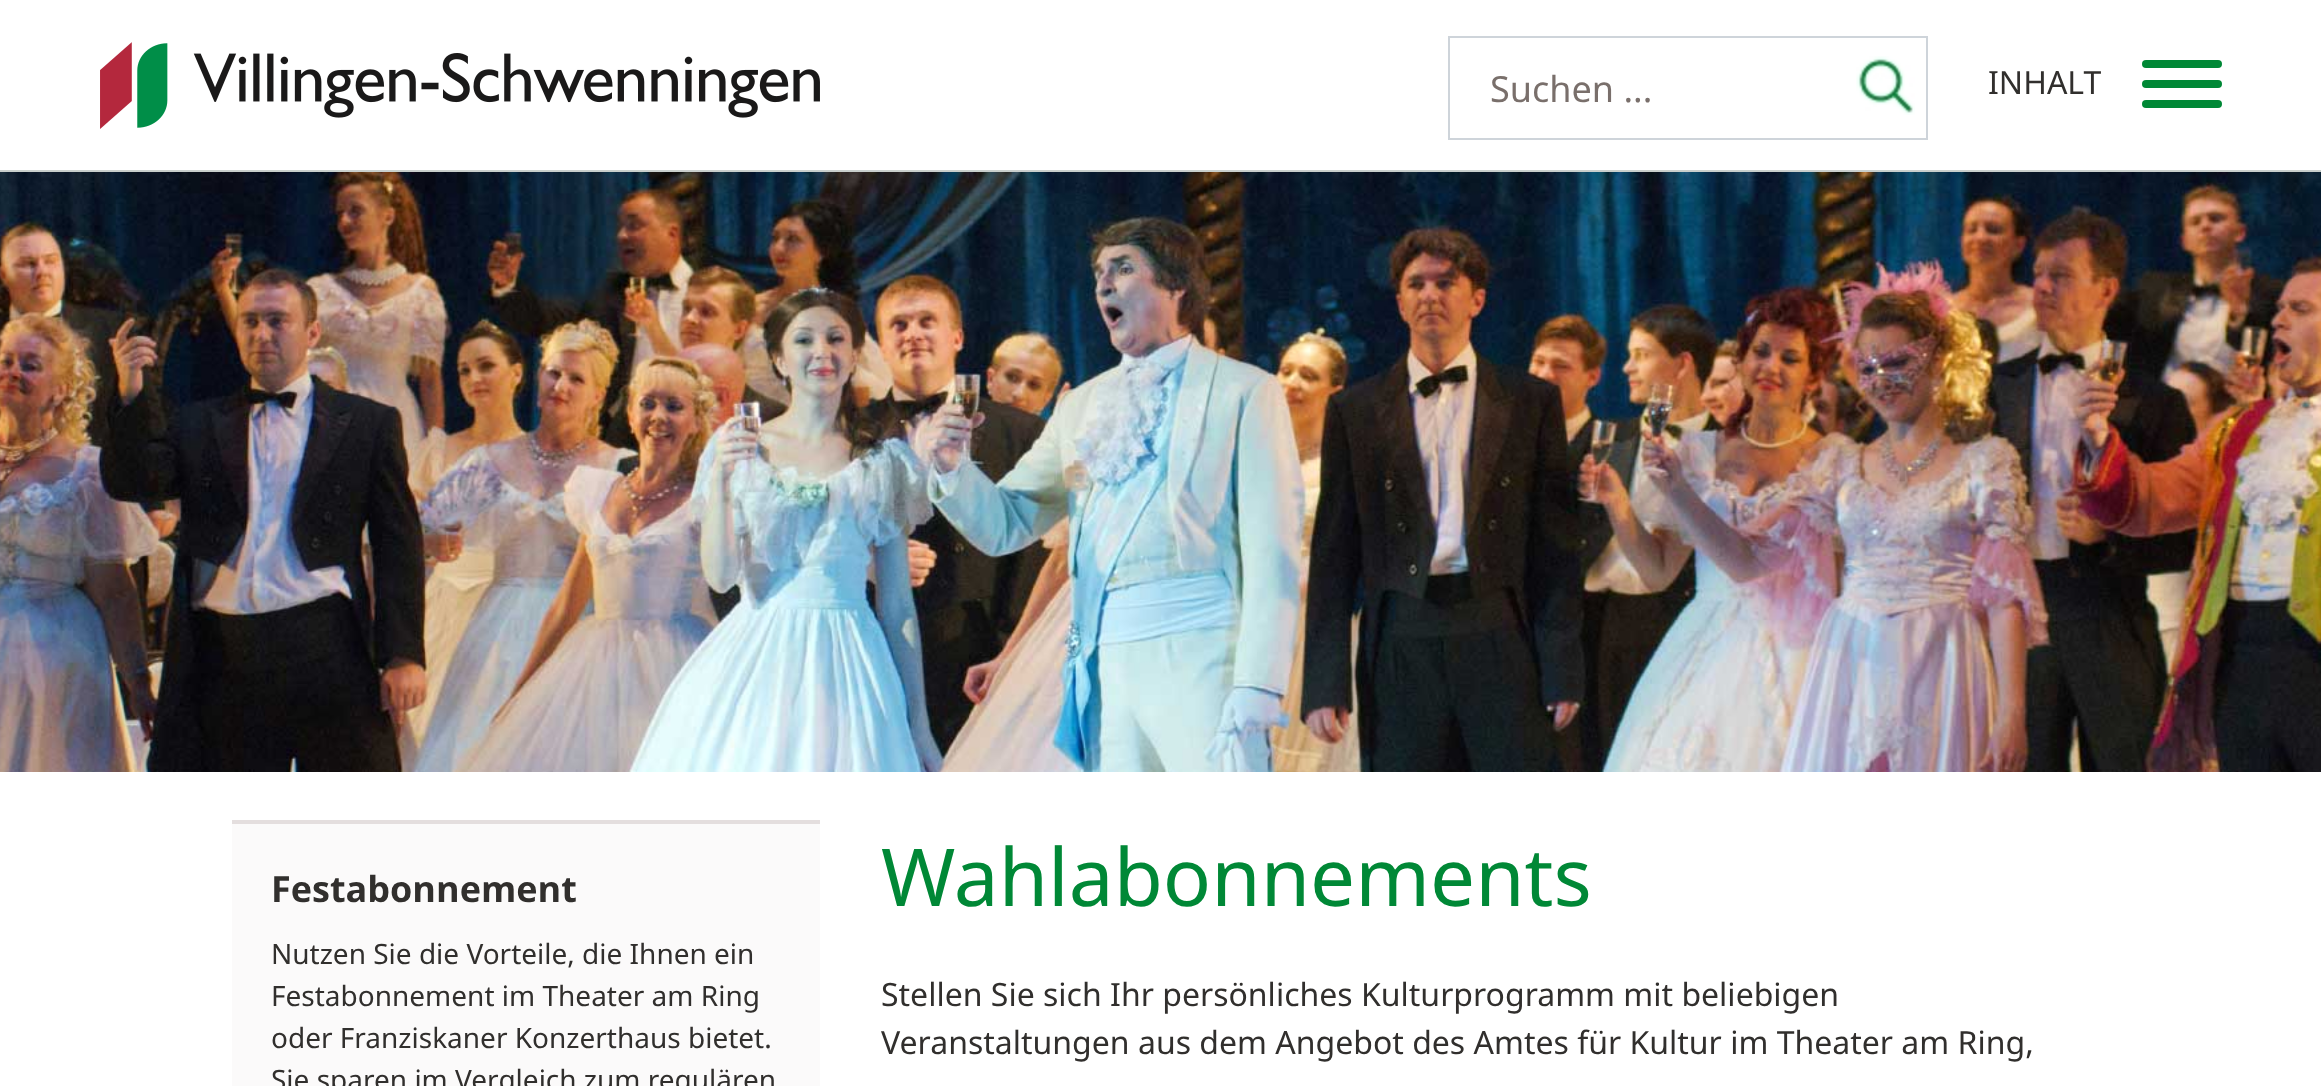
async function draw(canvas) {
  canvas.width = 2321
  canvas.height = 1086
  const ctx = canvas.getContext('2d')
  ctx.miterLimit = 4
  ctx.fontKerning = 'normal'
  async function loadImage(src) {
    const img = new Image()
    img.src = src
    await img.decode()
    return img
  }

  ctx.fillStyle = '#fff'
  ctx.fillRect(0, 0, 2321, 1086)
  ctx.fillStyle = '#c9cfcc'
  ctx.fillRect(0, 170, 2321, 2)
  ctx.drawImage(await loadImage('image0.png'), 100, 42, 720, 87)
  ctx.fillStyle = '#ced4da'
  ctx.beginPath()
  ctx.moveTo(1448, 36)
  ctx.lineTo(1828, 36)
  ctx.lineTo(1826, 38)
  ctx.lineTo(1450, 38)
  ctx.closePath()
  ctx.fill()
  ctx.beginPath()
  ctx.moveTo(1828, 140)
  ctx.lineTo(1448, 140)
  ctx.lineTo(1450, 138)
  ctx.lineTo(1826, 138)
  ctx.closePath()
  ctx.fill()
  ctx.fillRect(1448, 36, 2, 104)
  ctx.font = '36px Noto Sans'
  ctx.fillStyle = '#796f6b'
  ctx.fillText('Suchen ...', 1490, 102)
  ctx.drawImage(await loadImage('image1.png'), 1856, 56, 59, 59)
  ctx.fillStyle = '#ced4da'
  ctx.beginPath()
  ctx.moveTo(1824, 36)
  ctx.lineTo(1928, 36)
  ctx.lineTo(1926, 38)
  ctx.lineTo(1826, 38)
  ctx.closePath()
  ctx.fill()
  ctx.fillRect(1926, 36, 2, 104)
  ctx.beginPath()
  ctx.moveTo(1928, 140)
  ctx.lineTo(1824, 140)
  ctx.lineTo(1826, 138)
  ctx.lineTo(1926, 138)
  ctx.closePath()
  ctx.fill()
  ctx.font = '32px Noto Sans'
  ctx.fillStyle = '#312f2d'
  ctx.fillText('INHALT', 1988, 94)
  ctx.fillStyle = '#008836'
  ctx.beginPath()
  ctx.roundRect(2142, 80, 80, 8, 4)
  ctx.fill()
  ctx.beginPath()
  ctx.roundRect(2142, 60, 80, 8, 4)
  ctx.fill()
  ctx.beginPath()
  ctx.roundRect(2142, 100, 80, 8, 4)
  ctx.fill()
  ctx.drawImage(await loadImage('image2.png'), 0, 172, 2321, 600)
  ctx.fillStyle = '#fbfafa'
  ctx.fillRect(232, 824, 588, 262)
  ctx.fillStyle = '#e4dede'
  ctx.fillRect(232, 820, 588, 4)
  ctx.font = 'bold 36px Noto Sans'
  ctx.fillStyle = '#312f2d'
  ctx.fillText('Festabonnement', 271, 902)
  ctx.font = '28px Noto Sans'
  ctx.fillText('Nutzen Sie die Vorteile, die Ihnen ein', 271, 964)
  ctx.fillText('Festabonnement im Theater am Ring', 271, 1006)
  ctx.fillText('oder Franziskaner Konzerthaus bietet.', 271, 1048)
  ctx.fillText('Sie sparen im Vergleich zum regulären', 271, 1090)
  ctx.font = '80px Noto Sans'
  ctx.fillStyle = '#008836'
  ctx.fillText('Wahlabonnements', 881, 906)
  ctx.font = '32px Noto Sans'
  ctx.fillStyle = '#312f2d'
  ctx.fillText('Stellen Sie sich Ihr persönliches Kulturprogramm mit beliebigen', 881, 1006)
  ctx.fillText('Veranstaltungen aus dem Angebot des Amtes für Kultur im Theater am Ring,', 881, 1054)
}

draw(document.querySelector('canvas'))
